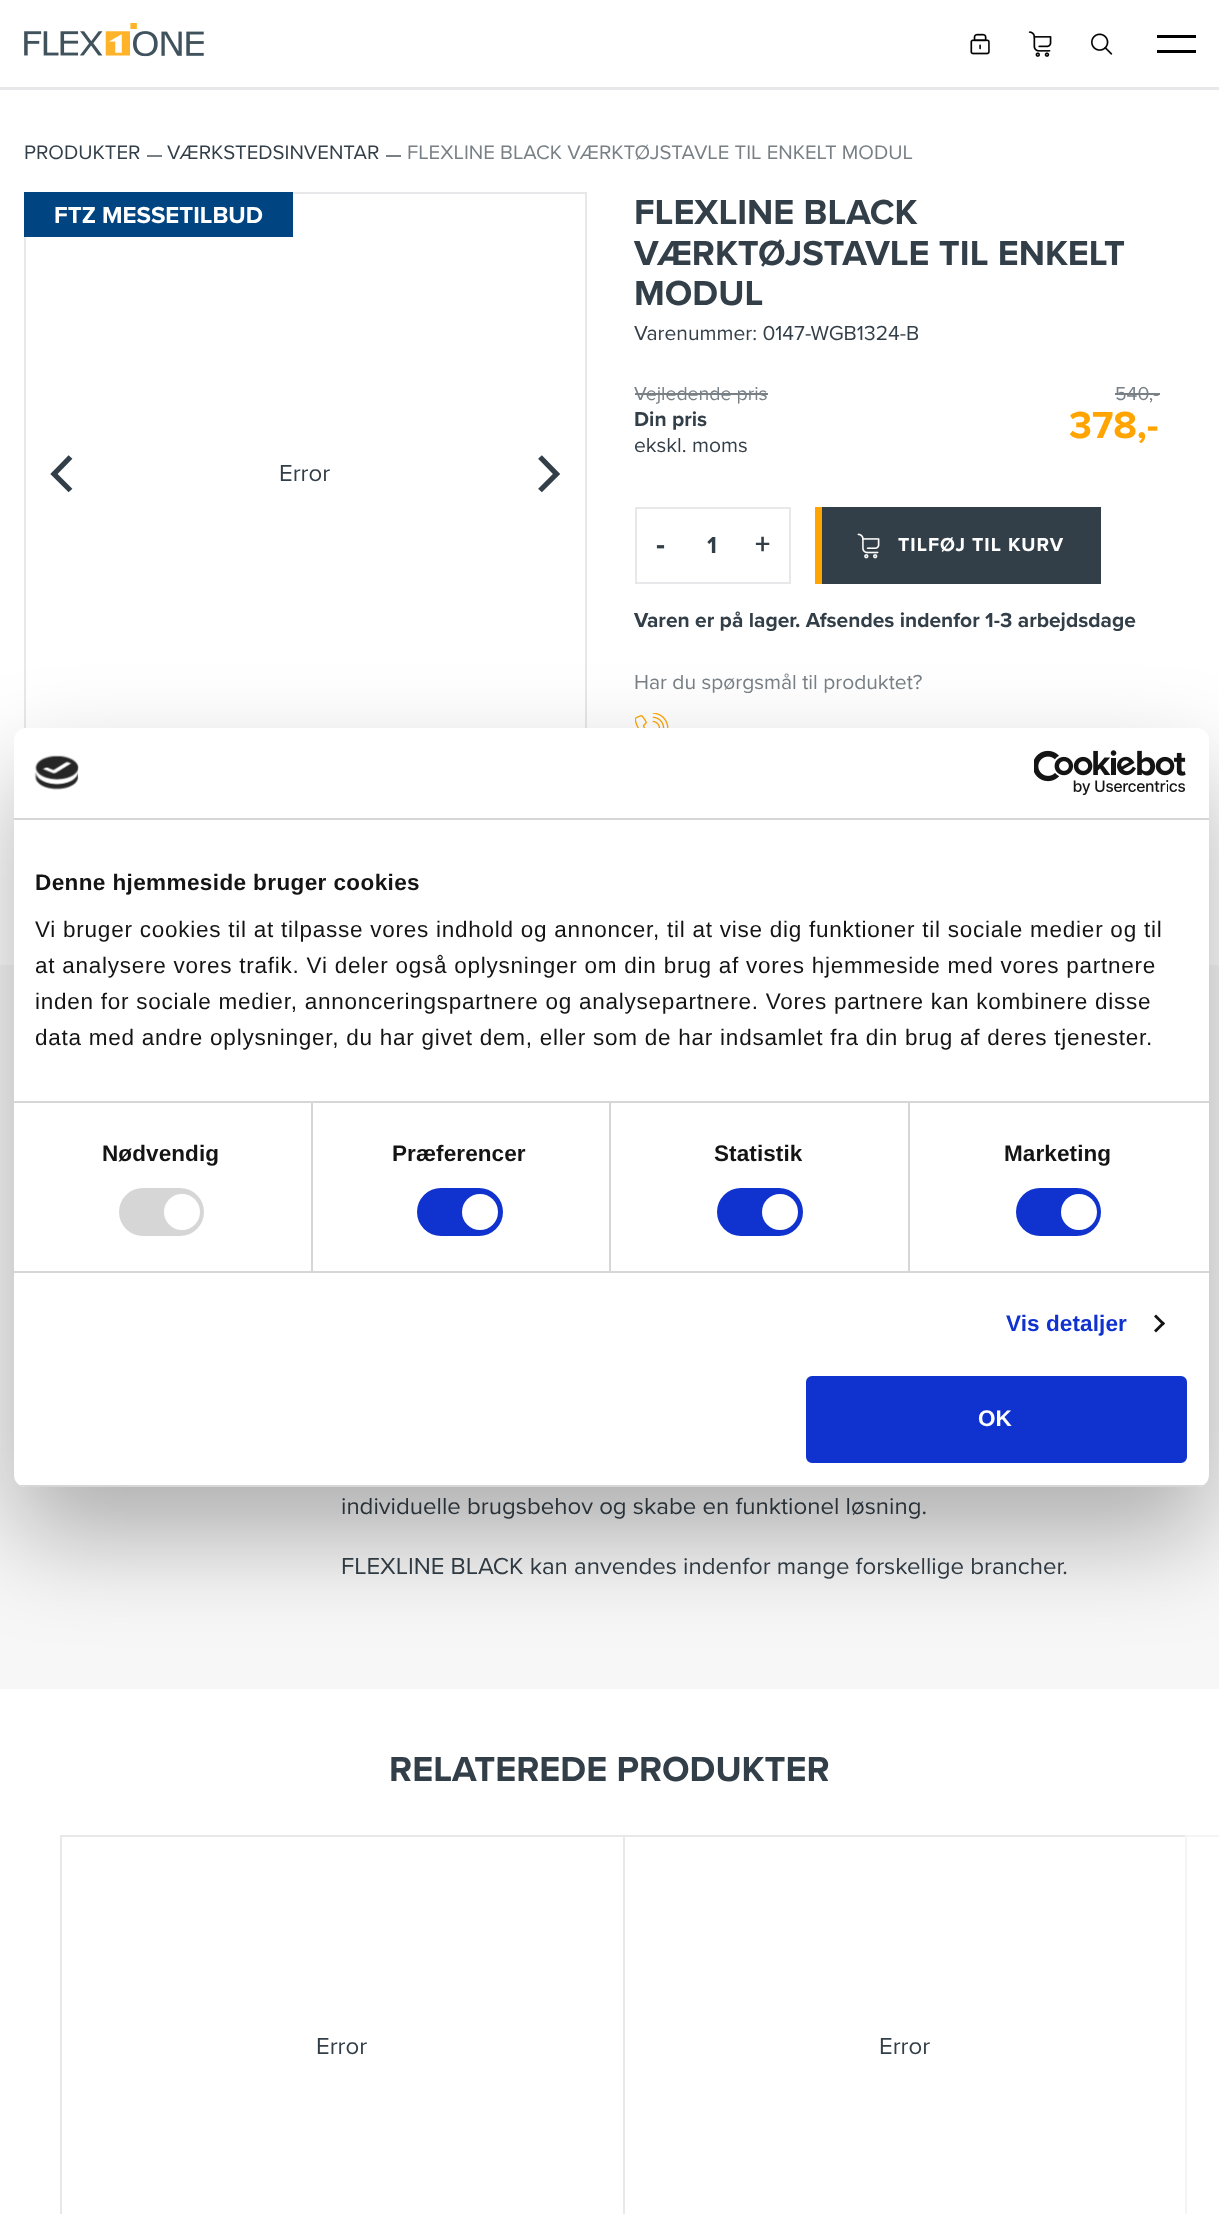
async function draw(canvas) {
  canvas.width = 1219
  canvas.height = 2214
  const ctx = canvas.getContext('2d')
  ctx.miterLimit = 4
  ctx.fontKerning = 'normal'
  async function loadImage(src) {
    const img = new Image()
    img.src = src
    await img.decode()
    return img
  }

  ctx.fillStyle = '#fff'
  ctx.fillRect(0, 0, 1219, 2214)
  ctx.fillStyle = '#e8e8eb'
  ctx.fillRect(0, 87, 1219, 3)
  ctx.drawImage(await loadImage('image0.png'), 24, 23, 180, 34)
  ctx.drawImage(await loadImage('image1.png'), 970, 33, 20, 22)
  ctx.drawImage(await loadImage('image2.png'), 1028, 31, 24, 26)
  ctx.drawImage(await loadImage('image3.png'), 1091, 33, 22, 22)
  ctx.fillStyle = '#000'
  ctx.fillRect(1157, 35, 39, 3)
  ctx.fillRect(1157, 50, 39, 3)
  ctx.font = '20.4px Proxima Nova'
  ctx.fillStyle = '#333f48'
  ctx.fillText('PRODUKTER', 24, 159)
  ctx.fillStyle = '#788086'
  ctx.fillRect(147, 155, 15, 2)
  ctx.fillStyle = '#333f48'
  ctx.fillText('VÆRKSTEDSINVENTAR', 167, 159)
  ctx.fillStyle = '#788086'
  ctx.fillRect(386, 155, 15, 2)
  ctx.fillText('FLEXLINE BLACK VÆRKTØJSTAVLE TIL ENKELT MODUL', 407, 159)
  ctx.strokeStyle = '#e8e8eb'
  ctx.lineWidth = 2
  ctx.strokeRect(25, 193, 561, 561)
  ctx.fillStyle = '#004481'
  ctx.fillRect(24, 192, 269, 45)
  ctx.font = 'bold 24px Proxima Nova'
  ctx.fillStyle = '#fff'
  ctx.fillText('FTZ MESSETILBUD', 54, 223)
  ctx.beginPath()
  ctx.moveTo(70.5, 457)
  ctx.lineTo(54, 474)
  ctx.lineTo(70.5, 490.5)
  ctx.strokeStyle = '#333f48'
  ctx.lineWidth = 5.3
  ctx.stroke()
  ctx.beginPath()
  ctx.moveTo(540, 490.5)
  ctx.lineTo(556.5, 474)
  ctx.lineTo(540, 457)
  ctx.stroke()
  ctx.font = '24px Proxima Nova'
  ctx.fillStyle = '#333f48'
  ctx.fillText('Error', 279, 481)
  ctx.font = 'bold 36px Proxima Nova'
  ctx.fillText('FLEXLINE BLACK', 634, 224)
  ctx.fillText('VÆRKTØJSTAVLE TIL ENKELT', 634, 265)
  ctx.fillText('MODUL', 634, 305)
  ctx.font = '21px Proxima Nova'
  ctx.fillText('Varenummer: 0147-WGB1324-B', 634, 340)
  ctx.font = '19.5px Proxima Nova'
  ctx.fillStyle = '#788086'
  ctx.fillText('Vejledende pris', 634, 400)
  ctx.fillRect(635, 393, 133, 2)
  ctx.fillText('540,-', 1115, 400)
  ctx.fillRect(1115, 393, 45, 2)
  ctx.font = 'bold 21px Proxima Nova'
  ctx.fillStyle = '#333f48'
  ctx.fillText('Din pris', 634, 426)
  ctx.font = '21px Proxima Nova'
  ctx.fillText('ekskl. moms', 634, 452)
  ctx.font = 'bold 39px Proxima Nova'
  ctx.fillStyle = '#ffa400'
  ctx.fillText('378,-', 1069, 438)
  ctx.strokeStyle = '#e8e8eb'
  ctx.lineWidth = 2
  ctx.strokeRect(636, 508, 154, 75)
  ctx.font = 'bold 30px Proxima Nova'
  ctx.fillStyle = '#333f48'
  ctx.fillText('-', 656, 554)
  ctx.font = 'bold 24px Proxima Nova'
  ctx.fillText('1', 707, 553)
  ctx.font = 'bold 30px Proxima Nova'
  ctx.fillText('+', 755, 554)
  ctx.fillRect(822, 507, 279, 77)
  ctx.fillStyle = '#ffa400'
  ctx.fillRect(815, 507, 7, 77)
  ctx.drawImage(await loadImage('image4.png'), 857, 533, 23, 26)
  ctx.letterSpacing = '1px'
  ctx.font = 'bold 19.5px Proxima Nova'
  ctx.fillStyle = '#fff'
  ctx.fillText('TILFØJ TIL KURV', 898, 551)
  ctx.letterSpacing = '0px'
  ctx.font = 'bold 21px Proxima Nova'
  ctx.fillStyle = '#333f48'
  ctx.fillText('Varen er på lager. Afsendes indenfor 1-3 arbejdsdage', 634, 627)
  ctx.font = '21px Proxima Nova'
  ctx.fillStyle = '#788086'
  ctx.fillText('Har du spørgsmål til produktet?', 634, 689)
  ctx.drawImage(await loadImage('image5.png'), 635, 713, 34, 15)
  ctx.fillStyle = '#f7f7f8'
  ctx.fillRect(0, 965, 1219, 724)
  ctx.font = '24px Proxima Nova'
  ctx.fillStyle = '#333f48'
  ctx.fillText('individuelle brugsbehov og skabe en funktionel løsning.', 341, 1514)
  ctx.fillText('FLEXLINE BLACK kan anvendes indenfor mange forskellige brancher.', 341, 1574)
  ctx.font = 'bold 36px Proxima Nova'
  ctx.fillText('RELATEREDE PRODUKTER', 389, 1781)
  ctx.fillStyle = '#e8e8eb'
  ctx.fillRect(60, 1835, 1125, 2)
  ctx.fillRect(60, 1835, 2, 379)
  ctx.font = '24px Proxima Nova'
  ctx.fillStyle = '#333f48'
  ctx.fillText('Error', 316, 2054)
  ctx.fillStyle = '#e8e8eb'
  ctx.fillRect(623, 1835, 2, 379)
  ctx.fillStyle = '#333f48'
  ctx.fillText('Error', 879, 2054)
  ctx.fillStyle = '#f4f4f5'
  ctx.fillRect(1185, 1835, 34, 2)
  ctx.fillRect(1185, 1835, 2, 379)
  ctx.fillStyle = '#0000004d'
  ctx.filter = 'blur(51px)'
  ctx.beginPath()
  ctx.roundRect(14, 776, 1195, 759, 12)
  ctx.fill()
  ctx.filter = 'none'
  ctx.fillStyle = '#fff'
  ctx.beginPath()
  ctx.roundRect(14, 728, 1195, 759, 12)
  ctx.fill()
  ctx.fillStyle = '#d6d6d6'
  ctx.fillRect(14, 818, 1195, 2)
  ctx.drawImage(await loadImage('image6.png'), 34, 755, 45, 35)
  ctx.drawImage(await loadImage('image7.png'), 1034, 750, 152, 45)
  ctx.fillRect(14, 1101, 1195, 2)
  ctx.letterSpacing = '0.4px'
  ctx.font = 'bold 22.5px Liberation Sans'
  ctx.fillStyle = '#141414'
  ctx.fillText('Denne hjemmeside bruger cookies', 35, 890)
  ctx.letterSpacing = '0.75px'
  ctx.font = '22.5px Liberation Sans'
  ctx.fillText('Vi bruger cookies til at tilpasse vores indhold og annoncer, til at vise dig funktioner til sociale medier og til', 35, 937)
  ctx.fillText('at analysere vores trafik. Vi deler også oplysninger om din brug af vores hjemmeside med vores partnere', 35, 973)
  ctx.fillText('inden for sociale medier, annonceringspartnere og analysepartnere. Vores partnere kan kombinere disse', 35, 1009)
  ctx.fillText('data med andre oplysninger, du har givet dem, eller som de har indsamlet fra din brug af deres tjenester.', 35, 1045)
  ctx.fillStyle = '#d6d6d6'
  ctx.fillRect(14, 1271, 1195, 2)
  ctx.fillRect(311, 1103, 2, 168)
  ctx.letterSpacing = '0.1px'
  ctx.font = 'bold 22.5px Liberation Sans'
  ctx.fillStyle = '#141414'
  ctx.fillText('Nødvendig', 102, 1161)
  ctx.fillStyle = '#d6d6d6'
  ctx.beginPath()
  ctx.roundRect(119, 1188, 85, 48, 24)
  ctx.fill()
  ctx.fillStyle = '#fff'
  ctx.beginPath()
  ctx.arc(182, 1212, 18, 0, 2 * Math.PI)
  ctx.fill()
  ctx.fillStyle = '#d6d6d6'
  ctx.fillRect(609, 1103, 2, 168)
  ctx.fillStyle = '#141414'
  ctx.fillText('Præferencer', 392, 1161)
  ctx.fillStyle = '#1032cf'
  ctx.beginPath()
  ctx.roundRect(417, 1188, 86, 48, 24)
  ctx.fill()
  ctx.fillStyle = '#fff'
  ctx.beginPath()
  ctx.arc(480, 1212, 18, 0, 2 * Math.PI)
  ctx.fill()
  ctx.fillStyle = '#d6d6d6'
  ctx.fillRect(908, 1103, 2, 168)
  ctx.fillStyle = '#141414'
  ctx.fillText('Statistik', 714, 1161)
  ctx.fillStyle = '#1032cf'
  ctx.beginPath()
  ctx.roundRect(717, 1188, 86, 48, 24)
  ctx.fill()
  ctx.fillStyle = '#fff'
  ctx.beginPath()
  ctx.arc(780, 1212, 18, 0, 2 * Math.PI)
  ctx.fill()
  ctx.fillStyle = '#141414'
  ctx.fillText('Marketing', 1004, 1161)
  ctx.fillStyle = '#1032cf'
  ctx.beginPath()
  ctx.roundRect(1016, 1188, 85, 48, 24)
  ctx.fill()
  ctx.fillStyle = '#fff'
  ctx.beginPath()
  ctx.arc(1079, 1212, 18, 0, 2 * Math.PI)
  ctx.fill()
  ctx.fillStyle = '#1032cf'
  ctx.fillText('Vis detaljer', 1006, 1331)
  ctx.fillStyle = '#141414'
  ctx.beginPath()
  ctx.moveTo(1156, 1314.5)
  ctx.lineTo(1165, 1323.5)
  ctx.lineTo(1163, 1325.5)
  ctx.lineTo(1154, 1316.5)
  ctx.closePath()
  ctx.fill()
  ctx.beginPath()
  ctx.moveTo(1163, 1321.5)
  ctx.lineTo(1165, 1323.5)
  ctx.lineTo(1156, 1332.5)
  ctx.lineTo(1154, 1330.5)
  ctx.closePath()
  ctx.fill()
  ctx.save()
  ctx.beginPath()
  ctx.roundRect(14, 728, 1195, 759, 12)
  ctx.clip()
  ctx.fillStyle = '#d6d6d6'
  ctx.fillRect(14, 1485, 1195, 2)
  ctx.restore()
  ctx.fillStyle = '#1032cf'
  ctx.beginPath()
  ctx.roundRect(807.5, 1377.5, 378, 84, 4.5)
  ctx.fill()
  ctx.strokeStyle = '#1032cf'
  ctx.lineWidth = 3
  ctx.stroke()
  ctx.letterSpacing = '0px'
  ctx.fillStyle = '#fff'
  ctx.fillText('OK', 978, 1426)
}

draw(document.querySelector('canvas'))
